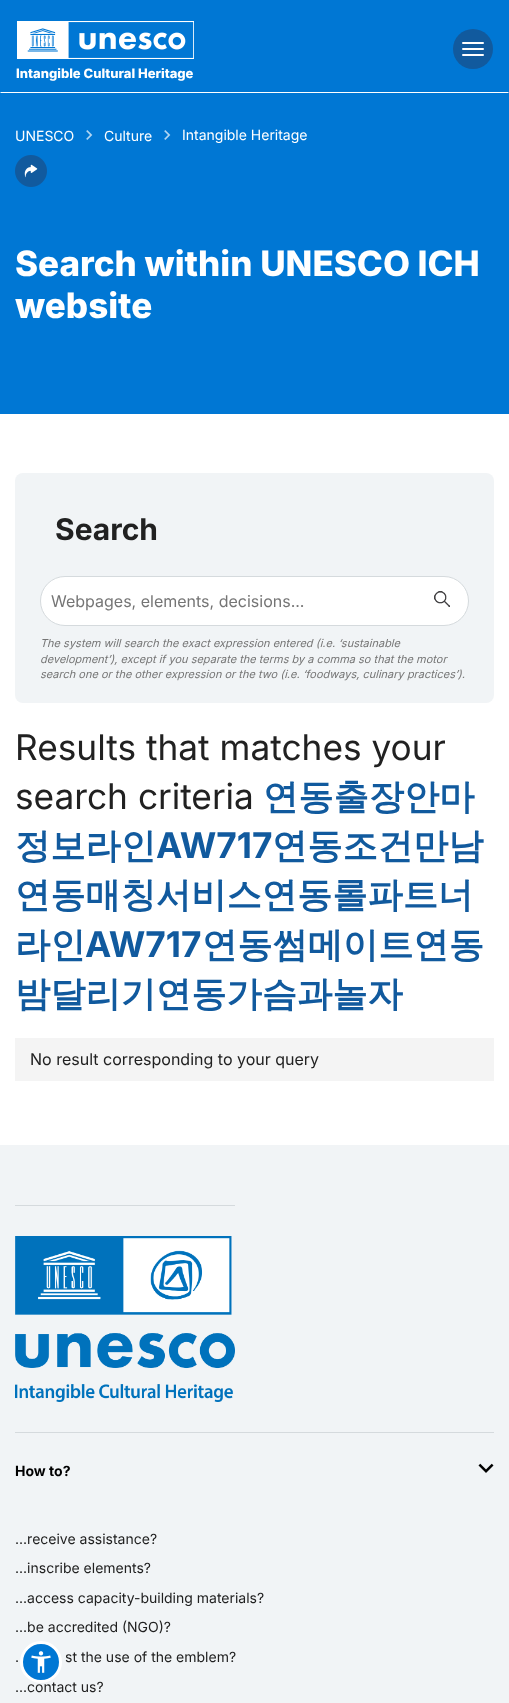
async function draw(canvas) {
  canvas.width = 509
  canvas.height = 1703
  const ctx = canvas.getContext('2d')
  ctx.miterLimit = 4
  ctx.fontKerning = 'normal'
  async function loadImage(src) {
    const img = new Image()
    img.src = src
    await img.decode()
    return img
  }

  ctx.fillStyle = '#fff'
  ctx.fillRect(0, 0, 509, 1703)
  ctx.fillStyle = '#0077d4'
  ctx.fillRect(0, 0, 509, 414)
  ctx.fillStyle = '#fff'
  ctx.beginPath()
  ctx.moveTo(509, 93)
  ctx.lineTo(0, 93)
  ctx.lineTo(1, 92)
  ctx.lineTo(508, 92)
  ctx.closePath()
  ctx.fill()
  ctx.fillStyle = '#115a9e'
  ctx.beginPath()
  ctx.arc(473, 49, 20, 0, 2 * Math.PI)
  ctx.fill()
  ctx.fillStyle = '#fff'
  ctx.beginPath()
  ctx.roundRect(462, 42, 22, 2, 1)
  ctx.fill()
  ctx.beginPath()
  ctx.roundRect(462, 48, 22, 2, 1)
  ctx.fill()
  ctx.beginPath()
  ctx.roundRect(462, 54, 22, 2, 1)
  ctx.fill()
  ctx.drawImage(await loadImage('image0.png'), 17, 21, 177, 38)
  ctx.font = '800 13px Inter'
  ctx.fillText('Intangible Cultural Heritage', 16, 78)
  ctx.font = '14px Inter'
  ctx.fillText('UNESCO', 15, 141)
  ctx.drawImage(await loadImage('image1.png'), 86, 130, 7, 10)
  ctx.fillText('Culture', 104, 141)
  ctx.drawImage(await loadImage('image1.png'), 164, 130, 7, 10)
  ctx.fillText('Intangible Heritage', 182, 140)
  ctx.drawImage(await loadImage('image2.png'), 15, 155, 32, 32)
  ctx.font = '800 35px Inter'
  ctx.fillText('Search within UNESCO ICH', 15, 276)
  ctx.fillText('website', 15, 318)
  ctx.fillStyle = '#f1f4f6'
  ctx.beginPath()
  ctx.roundRect(15, 473, 479, 230, 8)
  ctx.fill()
  ctx.font = 'bold 30px Inter'
  ctx.fillStyle = '#212121'
  ctx.fillText('Search', 55, 540)
  ctx.fillStyle = '#fff'
  ctx.beginPath()
  ctx.roundRect(40.5, 576.5, 428, 49, 24.5)
  ctx.fill()
  ctx.strokeStyle = '#d5dadd'
  ctx.stroke()
  ctx.font = '16px Inter'
  ctx.fillStyle = '#757575'
  ctx.fillText('Webpages, elements, decisions...', 51, 607)
  ctx.drawImage(await loadImage('image3.png'), 434, 591, 16, 16)
  ctx.font = 'italic 11px Inter'
  ctx.fillText('The system will search the exact expression entered (i.e. ‘sustainable', 40, 647)
  ctx.fillText('development’), except if you separate the terms by a comma so that the motor', 40, 663)
  ctx.fillText('search one or the other expression or the two (i.e. ‘foodways, culinary practices’).', 40, 678)
  ctx.font = '35.25px Inter'
  ctx.fillStyle = '#212121'
  ctx.fillText('Results that matches your', 15, 760)
  ctx.fillText('search criteria', 15, 809)
  ctx.font = 'bold 35.25px WenQuanYi Zen Hei'
  ctx.fillStyle = '#115a9e'
  ctx.fillText('연동출장안마', 263, 809)
  ctx.fillText('정보라인', 15, 858)
  ctx.font = 'bold 35.25px Inter'
  ctx.fillText('AW717', 156, 858)
  ctx.font = 'bold 35.25px WenQuanYi Zen Hei'
  ctx.fillText('연동조건만남', 272, 858)
  ctx.fillText('연동매칭서비스연동롤파트너', 15, 907)
  ctx.fillText('라인', 15, 957)
  ctx.font = 'bold 35.25px Inter'
  ctx.fillText('AW717', 85, 957)
  ctx.font = 'bold 35.25px WenQuanYi Zen Hei'
  ctx.fillText('연동썸메이트연동', 202, 957)
  ctx.fillText('밤달리기연동가슴과놀자', 15, 1006)
  ctx.fillStyle = '#f4f4f4'
  ctx.fillRect(15, 1038, 479, 43)
  ctx.font = '16px Inter'
  ctx.fillStyle = '#212121'
  ctx.fillText('No result corresponding to your query', 30, 1065)
  ctx.fillStyle = '#f1f4f6'
  ctx.fillRect(0, 1145, 509, 558)
  ctx.fillStyle = '#d5dadd'
  ctx.fillRect(15, 1205, 220, 1)
  ctx.drawImage(await loadImage('image4.png'), 15, 1236, 220, 166)
  ctx.fillRect(15, 1432, 479, 1)
  ctx.font = 'bold 14px Inter'
  ctx.fillStyle = '#000'
  ctx.fillText('How to?', 15, 1476)
  ctx.drawImage(await loadImage('image5.png'), 478, 1463, 16, 10)
  ctx.font = '14px Inter'
  ctx.fillStyle = '#212121'
  ctx.fillText('...receive assistance?', 15, 1544)
  ctx.fillText('...inscribe elements?', 15, 1573)
  ctx.fillText('...access capacity-building materials?', 15, 1603)
  ctx.fillText('...be accredited (NGO)?', 15, 1632)
  ctx.fillText('.', 15, 1662)
  ctx.fillText('st the use of the emblem?', 65, 1662)
  ctx.fillText('...contact us?', 15, 1692)
  ctx.fillStyle = '#0077d4'
  ctx.beginPath()
  ctx.arc(41, 1662, 19.5, 0, 2 * Math.PI)
  ctx.fill()
  ctx.strokeStyle = '#fff'
  ctx.lineWidth = 3
  ctx.stroke()
  ctx.drawImage(await loadImage('image6.png'), 31, 1651, 20, 22)
}

draw(document.querySelector('canvas'))
